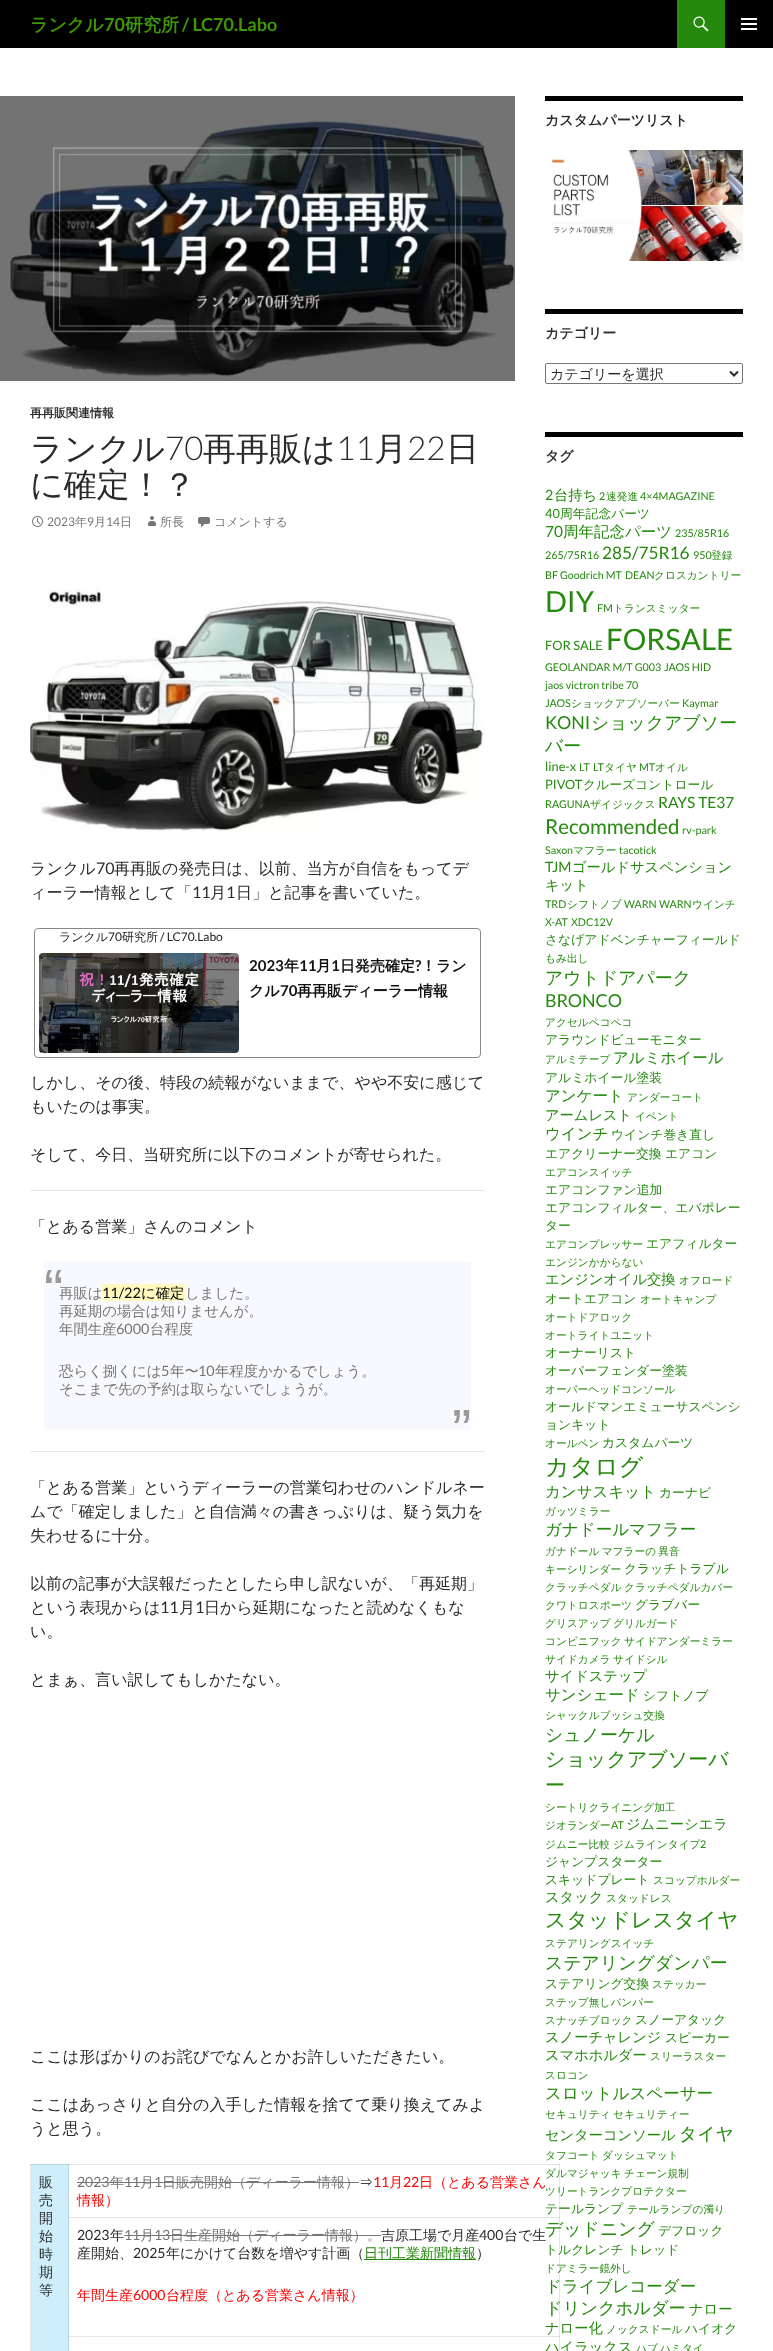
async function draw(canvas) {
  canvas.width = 773
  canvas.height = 2351
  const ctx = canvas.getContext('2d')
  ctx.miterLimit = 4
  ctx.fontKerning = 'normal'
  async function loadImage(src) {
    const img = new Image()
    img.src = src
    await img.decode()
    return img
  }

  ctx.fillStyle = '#fff'
  ctx.fillRect(0, 0, 773, 2351)
  ctx.fillStyle = '#e6e6e6'
  ctx.fillRect(68, 2217, 492, 1)
  ctx.fillRect(559, 2164, 1, 54)
  ctx.fillRect(68, 2336, 492, 1)
  ctx.fillRect(559, 2217, 1, 134)
  ctx.fillStyle = '#bababa'
  ctx.fillRect(559, 2217, 1, 1)
  ctx.fillStyle = '#e6e6e6'
  ctx.fillRect(30, 2164, 1, 187)
  ctx.fillRect(69, 2164, 491, 1)
  ctx.fillStyle = '#cfcfcf'
  ctx.fillRect(559, 2164, 1, 1)
  ctx.fillRect(30, 2164, 1, 1)
  ctx.fillStyle = '#000'
  ctx.fillRect(0, 0, 773, 48)
  ctx.font = 'bold 18px WenQuanYi Zen Hei'
  ctx.fillStyle = '#3e9600'
  ctx.fillText('ランクル', 30, 31)
  ctx.font = 'bold 18px Lato'
  ctx.fillText('70', 104, 31)
  ctx.font = 'bold 18px WenQuanYi Zen Hei'
  ctx.fillText('研究所', 125, 31)
  ctx.font = 'bold 18px Lato'
  ctx.fillText('/ LC70.Labo', 182, 31)
  ctx.fillStyle = '#24890d'
  ctx.fillRect(677, 0, 48, 48)
  ctx.drawImage(await loadImage('image0.png'), 693, 16, 16, 16)
  ctx.drawImage(await loadImage('image1.png'), 741, 18, 16, 12)
  ctx.drawImage(await loadImage('image2.png'), 0, 96, 515, 285)
  ctx.font = 'bold 12px WenQuanYi Zen Hei'
  ctx.fillStyle = '#2b2b2b'
  ctx.fillText('再再販関連情報', 30, 417)
  ctx.font = '500 33px WenQuanYi Zen Hei'
  ctx.fillText('ランクル', 30, 460)
  ctx.font = '300 33px Lato'
  ctx.fillText('70', 165, 460)
  ctx.font = '500 33px WenQuanYi Zen Hei'
  ctx.fillText('再再販は', 203, 460)
  ctx.font = '300 33px Lato'
  ctx.fillText('11', 336, 460)
  ctx.font = '500 33px WenQuanYi Zen Hei'
  ctx.fillText('月', 374, 460)
  ctx.font = '300 33px Lato'
  ctx.fillText('22', 407, 460)
  ctx.font = '500 33px WenQuanYi Zen Hei'
  ctx.fillText('日', 446, 460)
  ctx.fillText('に確定！？', 30, 496)
  ctx.drawImage(await loadImage('image3.png'), 32, 516, 11, 11)
  ctx.font = '12px Lato'
  ctx.fillStyle = '#767676'
  ctx.fillText('2023', 47, 526)
  ctx.font = '500 12px WenQuanYi Zen Hei'
  ctx.fillText('年', 75, 526)
  ctx.font = '12px Lato'
  ctx.fillText('9', 87, 526)
  ctx.font = '500 12px WenQuanYi Zen Hei'
  ctx.fillText('月', 94, 526)
  ctx.font = '12px Lato'
  ctx.fillText('14', 106, 526)
  ctx.font = '500 12px WenQuanYi Zen Hei'
  ctx.fillText('日', 120, 526)
  ctx.drawImage(await loadImage('image4.png'), 148, 516, 8, 10)
  ctx.fillText('所長', 160, 526)
  ctx.drawImage(await loadImage('image5.png'), 198, 517, 12, 11)
  ctx.fillText('コメントする', 214, 526)
  ctx.drawImage(await loadImage('image6.png'), 30, 589, 455, 242)
  ctx.font = '500 16px WenQuanYi Zen Hei'
  ctx.fillStyle = '#2b2b2b'
  ctx.fillText('ランクル', 30, 874)
  ctx.font = '16px Lato'
  ctx.fillText('70', 96, 874)
  ctx.font = '500 16px WenQuanYi Zen Hei'
  ctx.fillText('再再販の発売日は、以前、当方が自信をもってデ', 114, 874)
  ctx.fillText('ィーラー情報として「', 30, 898)
  ctx.font = '16px Lato'
  ctx.fillText('11', 192, 898)
  ctx.font = '500 16px WenQuanYi Zen Hei'
  ctx.fillText('月', 210, 898)
  ctx.font = '16px Lato'
  ctx.fillText('1', 226, 898)
  ctx.font = '500 16px WenQuanYi Zen Hei'
  ctx.fillText('日」と記事を書いていた。', 236, 898)
  ctx.beginPath()
  ctx.roundRect(34.5, 928.5, 446, 129, 3.5)
  ctx.strokeStyle = '#888'
  ctx.stroke()
  ctx.font = '500 12px WenQuanYi Zen Hei'
  ctx.fillStyle = '#222'
  ctx.fillText('ランクル', 59, 941)
  ctx.font = '12px Lato'
  ctx.fillText('70', 108, 941)
  ctx.font = '500 12px WenQuanYi Zen Hei'
  ctx.fillText('研究所', 122, 941)
  ctx.font = '12px Lato'
  ctx.fillText('/ LC70.Labo', 160, 941)
  ctx.drawImage(await loadImage('image7.png'), 39, 953, 200, 100)
  ctx.font = 'bold 15px Lato'
  ctx.fillStyle = '#111'
  ctx.fillText('2023', 249, 971)
  ctx.font = 'bold 15px WenQuanYi Zen Hei'
  ctx.fillText('年', 284, 971)
  ctx.font = 'bold 15px Lato'
  ctx.fillText('11', 299, 971)
  ctx.font = 'bold 15px WenQuanYi Zen Hei'
  ctx.fillText('月', 316, 971)
  ctx.font = 'bold 15px Lato'
  ctx.fillText('1', 331, 971)
  ctx.font = 'bold 15px WenQuanYi Zen Hei'
  ctx.fillText('日発売確定', 340, 971)
  ctx.font = 'bold 15px Lato'
  ctx.fillText('?', 415, 971)
  ctx.font = 'bold 15px WenQuanYi Zen Hei'
  ctx.fillText('！ラン', 421, 971)
  ctx.fillText('クル', 249, 996)
  ctx.font = 'bold 15px Lato'
  ctx.fillText('70', 280, 996)
  ctx.font = 'bold 15px WenQuanYi Zen Hei'
  ctx.fillText('再再販ディーラー情報', 297, 996)
  ctx.font = '500 16px WenQuanYi Zen Hei'
  ctx.fillStyle = '#2b2b2b'
  ctx.fillText('しかし、その後、特段の続報がないままで、やや不安に感じて', 30, 1088)
  ctx.fillText('もいたのは事実。', 30, 1112)
  ctx.fillText('そして、今日、当研究所に以下のコメントが寄せられた。', 30, 1160)
  ctx.fillStyle = '#e6e6e6'
  ctx.fillRect(30, 1190, 455, 1)
  ctx.fillStyle = '#2b2b2b'
  ctx.fillText('「とある営業」さんのコメント', 30, 1232)
  ctx.fillStyle = '#f8f8ff'
  ctx.fillRect(44, 1262, 427, 168)
  ctx.font = '58px Liberation Sans'
  ctx.fillStyle = '#999'
  ctx.fillText('“', 44, 1310)
  ctx.font = '500 14.4px WenQuanYi Zen Hei'
  ctx.fillStyle = '#767676'
  ctx.fillText('再販は', 59, 1298)
  ctx.fillStyle = '#fff9c0'
  ctx.fillRect(102, 1284, 83, 17)
  ctx.font = '14.4px Lato'
  ctx.fillStyle = '#000'
  ctx.fillText('11/22', 102, 1298)
  ctx.font = '500 14.4px WenQuanYi Zen Hei'
  ctx.fillText('に確定', 141, 1298)
  ctx.fillStyle = '#767676'
  ctx.fillText('しました。', 185, 1298)
  ctx.fillText('再延期の場合は知りませんが。', 59, 1316)
  ctx.fillText('年間生産', 59, 1334)
  ctx.font = '14.4px Lato'
  ctx.fillText('6000', 116, 1334)
  ctx.font = '500 14.4px WenQuanYi Zen Hei'
  ctx.fillText('台程度', 150, 1334)
  ctx.fillText('恐らく捌くには', 59, 1376)
  ctx.font = '14.4px Lato'
  ctx.fillText('5', 161, 1376)
  ctx.font = '500 14.4px WenQuanYi Zen Hei'
  ctx.fillText('年〜', 170, 1376)
  ctx.font = '14.4px Lato'
  ctx.fillText('10', 198, 1376)
  ctx.font = '500 14.4px WenQuanYi Zen Hei'
  ctx.fillText('年程度かかるでしょう。', 215, 1376)
  ctx.fillText('そこまで先の予約は取らないでしょうが。', 59, 1394)
  ctx.font = '58px Liberation Sans'
  ctx.fillStyle = '#999'
  ctx.fillText('”', 452, 1450)
  ctx.fillStyle = '#e6e6e6'
  ctx.fillRect(30, 1451, 455, 1)
  ctx.font = '500 16px WenQuanYi Zen Hei'
  ctx.fillStyle = '#2b2b2b'
  ctx.fillText('「とある営業」というディーラーの営業匂わせのハンドルネー', 30, 1493)
  ctx.fillText('ムで「確定しました」と自信満々の書きっぷりは、疑う気力を', 30, 1517)
  ctx.fillText('失わせるに十分。', 30, 1541)
  ctx.fillText('以前の記事が大誤報だったとしたら申し訳ないが、「再延期」', 30, 1589)
  ctx.fillText('という表現からは', 30, 1613)
  ctx.font = '16px Lato'
  ctx.fillText('11', 160, 1613)
  ctx.font = '500 16px WenQuanYi Zen Hei'
  ctx.fillText('月', 179, 1613)
  ctx.font = '16px Lato'
  ctx.fillText('1', 195, 1613)
  ctx.font = '500 16px WenQuanYi Zen Hei'
  ctx.fillText('日から延期になったと読めなくもな', 204, 1613)
  ctx.fillText('い。', 30, 1637)
  ctx.fillText('とまぁ、言い訳してもしかたない。', 30, 1685)
  ctx.fillText('ここは形ばかりのお詫びでなんとかお許しいただきたい。', 30, 2062)
  ctx.fillText('ここはあっさりと自分の入手した情報を捨てて乗り換えてみよ', 30, 2110)
  ctx.fillText('うと思う。', 30, 2134)
  ctx.fillStyle = '#cfeefc'
  ctx.fillRect(31, 2165, 37, 186)
  ctx.fillStyle = '#bad6e3'
  ctx.fillRect(68, 2164, 1, 187)
  ctx.fillStyle = '#a7c1cc'
  ctx.fillRect(68, 2217, 1, 1)
  ctx.fillRect(68, 2336, 1, 1)
  ctx.fillStyle = '#bad6e3'
  ctx.fillRect(31, 2164, 38, 1)
  ctx.fillStyle = '#a7c1cc'
  ctx.fillRect(68, 2164, 1, 1)
  ctx.font = '500 14px WenQuanYi Zen Hei'
  ctx.fillStyle = '#2b2b2b'
  ctx.fillText('販', 39, 2187)
  ctx.fillText('売', 39, 2205)
  ctx.fillText('開', 39, 2223)
  ctx.fillText('始', 39, 2241)
  ctx.fillText('時', 39, 2259)
  ctx.fillText('期', 39, 2277)
  ctx.fillText('等', 39, 2295)
  ctx.font = '14px Lato'
  ctx.fillStyle = '#767676'
  ctx.fillText('2023', 77, 2187)
  ctx.font = '500 14px WenQuanYi Zen Hei'
  ctx.fillText('年', 110, 2187)
  ctx.font = '14px Lato'
  ctx.fillText('11', 124, 2187)
  ctx.font = '500 14px WenQuanYi Zen Hei'
  ctx.fillText('月', 140, 2187)
  ctx.fillRect(77, 2182, 282, 1)
  ctx.font = '14px Lato'
  ctx.fillText('1', 154, 2187)
  ctx.font = '500 14px WenQuanYi Zen Hei'
  ctx.fillText('日販売開始（ディーラー情報）', 162, 2187)
  ctx.fillStyle = '#000'
  ctx.fillText('⇒', 359, 2187)
  ctx.font = '14px Lato'
  ctx.fillStyle = '#f00'
  ctx.fillText('11', 373, 2187)
  ctx.font = '500 14px WenQuanYi Zen Hei'
  ctx.fillText('月', 389, 2187)
  ctx.font = '14px Lato'
  ctx.fillText('22', 403, 2187)
  ctx.font = '500 14px WenQuanYi Zen Hei'
  ctx.fillText('日（とある営業さん', 419, 2187)
  ctx.fillText('情報）', 77, 2205)
  ctx.font = '14px Lato'
  ctx.fillStyle = '#2b2b2b'
  ctx.fillText('2023', 77, 2240)
  ctx.font = '500 14px WenQuanYi Zen Hei'
  ctx.fillText('年', 110, 2240)
  ctx.font = '14px Lato'
  ctx.fillStyle = '#767676'
  ctx.fillText('11', 124, 2240)
  ctx.font = '500 14px WenQuanYi Zen Hei'
  ctx.fillText('月', 140, 2240)
  ctx.fillRect(124, 2235, 257, 1)
  ctx.font = '14px Lato'
  ctx.fillText('13', 154, 2240)
  ctx.font = '500 14px WenQuanYi Zen Hei'
  ctx.fillText('日生産開始（ディーラー情報）。', 170, 2240)
  ctx.fillStyle = '#2b2b2b'
  ctx.fillText('吉原工場で月産', 381, 2240)
  ctx.font = '14px Lato'
  ctx.fillText('400', 479, 2240)
  ctx.font = '500 14px WenQuanYi Zen Hei'
  ctx.fillText('台で生', 504, 2240)
  ctx.fillText('産開始、', 77, 2258)
  ctx.font = '14px Lato'
  ctx.fillText('2025', 133, 2258)
  ctx.font = '500 14px WenQuanYi Zen Hei'
  ctx.fillText('年にかけて台数を増やす計画（', 166, 2258)
  ctx.fillStyle = '#24890d'
  ctx.fillRect(364, 2259, 112, 1)
  ctx.fillText('日刊工業新聞情報', 364, 2258)
  ctx.fillStyle = '#2b2b2b'
  ctx.fillText('）', 476, 2258)
  ctx.fillStyle = '#f00'
  ctx.fillText('年間生産', 77, 2300)
  ctx.font = '14px Lato'
  ctx.fillText('6000', 133, 2300)
  ctx.font = '500 14px WenQuanYi Zen Hei'
  ctx.fillText('台程度（とある営業さん情報）', 166, 2300)
  ctx.fillStyle = '#bababa'
  ctx.fillRect(559, 2336, 1, 1)
  ctx.fillStyle = '#000'
  ctx.fillRect(545, 96, 198, 5)
  ctx.font = 'bold 14px WenQuanYi Zen Hei'
  ctx.fillStyle = '#2b2b2b'
  ctx.fillText('カスタムパーツリスト', 545, 125)
  ctx.drawImage(await loadImage('image8.png'), 551, 150, 192, 111)
  ctx.fillStyle = '#000'
  ctx.fillRect(545, 309, 198, 5)
  ctx.fillStyle = '#2b2b2b'
  ctx.fillText('カテゴリー', 545, 338)
  ctx.beginPath()
  ctx.roundRect(545.5, 363.5, 197, 20, 1.5)
  ctx.strokeStyle = '#767676'
  ctx.stroke()
  ctx.beginPath()
  ctx.moveTo(730, 371.5)
  ctx.lineTo(734, 375.5)
  ctx.lineTo(738, 371.5)
  ctx.strokeStyle = '#2b2b2b'
  ctx.lineWidth = 2
  ctx.stroke()
  ctx.font = '500 14px WenQuanYi Zen Hei'
  ctx.fillText('カテゴリーを選択', 550, 379)
  ctx.fillStyle = '#000'
  ctx.fillRect(545, 432, 198, 5)
  ctx.font = 'bold 14px WenQuanYi Zen Hei'
  ctx.fillStyle = '#2b2b2b'
  ctx.fillText('タグ', 545, 461)
  ctx.font = '14.25px Lato'
  ctx.fillStyle = '#24890d'
  ctx.fillText('2', 545, 500)
  ctx.font = '500 14.25px WenQuanYi Zen Hei'
  ctx.fillText('台持ち', 554, 500)
  ctx.font = '10.7px Lato'
  ctx.fillText('2', 599, 500)
  ctx.font = '500 10.7px WenQuanYi Zen Hei'
  ctx.fillText('速発進', 606, 500)
  ctx.font = '10.7px Lato'
  ctx.fillText('4×4MAGAZINE', 640, 500)
  ctx.font = '12.8px Lato'
  ctx.fillText('40', 545, 518)
  ctx.font = '500 12.8px WenQuanYi Zen Hei'
  ctx.fillText('周年記念パーツ', 560, 518)
  ctx.font = '15.5px Lato'
  ctx.fillText('70', 545, 537)
  ctx.font = '500 15.5px WenQuanYi Zen Hei'
  ctx.fillText('周年記念パーツ', 563, 537)
  ctx.font = '10.7px Lato'
  ctx.fillText('235/85R16', 675, 537)
  ctx.fillText('265/75R16', 545, 559)
  ctx.font = '17.25px Lato'
  ctx.fillText('285/75R16', 602, 559)
  ctx.font = '10.7px Lato'
  ctx.fillText('950', 693, 559)
  ctx.font = '500 10.7px WenQuanYi Zen Hei'
  ctx.fillText('登録', 711, 559)
  ctx.font = '10.7px Lato'
  ctx.fillText('BF Goodrich MT', 545, 579)
  ctx.fillText('DEAN', 625, 579)
  ctx.font = '500 10.7px WenQuanYi Zen Hei'
  ctx.fillText('クロスカントリー', 654, 579)
  ctx.font = '29px Lato'
  ctx.fillText('DIY', 545, 612)
  ctx.font = '10.7px Lato'
  ctx.fillText('FM', 597, 612)
  ctx.font = '500 10.7px WenQuanYi Zen Hei'
  ctx.fillText('トランスミッター', 613, 612)
  ctx.font = '12.8px Lato'
  ctx.fillText('FOR SALE', 545, 650)
  ctx.font = '29.5px Lato'
  ctx.fillText('FORSALE', 606, 650)
  ctx.font = '10.7px Lato'
  ctx.fillText('GEOLANDAR M/T G003', 545, 671)
  ctx.fillText('JAOS HID', 664, 671)
  ctx.fillText('jaos victron tribe 70', 545, 689)
  ctx.fillText('JAOS', 545, 707)
  ctx.font = '500 10.7px WenQuanYi Zen Hei'
  ctx.fillText('ショックアブソーバー', 571, 707)
  ctx.font = '10.7px Lato'
  ctx.fillText('Kaymar', 682, 707)
  ctx.font = '17.9px Lato'
  ctx.fillText('KONI', 545, 729)
  ctx.font = '500 17.9px WenQuanYi Zen Hei'
  ctx.fillText('ショックアブソー', 591, 729)
  ctx.fillText('バー', 545, 752)
  ctx.font = '12.8px Lato'
  ctx.fillText('line-x', 545, 771)
  ctx.font = '10.7px Lato'
  ctx.fillText('LT', 579, 771)
  ctx.fillText('LT', 593, 771)
  ctx.font = '500 10.7px WenQuanYi Zen Hei'
  ctx.fillText('タイヤ', 604, 771)
  ctx.font = '10.7px Lato'
  ctx.fillText('MT', 639, 771)
  ctx.font = '500 10.7px WenQuanYi Zen Hei'
  ctx.fillText('オイル', 655, 771)
  ctx.font = '12.8px Lato'
  ctx.fillText('PIVOT', 545, 789)
  ctx.font = '500 12.8px WenQuanYi Zen Hei'
  ctx.fillText('クルーズコントロール', 583, 789)
  ctx.font = '10.7px Lato'
  ctx.fillText('RAGUNA', 545, 808)
  ctx.font = '500 10.7px WenQuanYi Zen Hei'
  ctx.fillText('ザイジックス', 590, 808)
  ctx.font = '15.5px Lato'
  ctx.fillText('RAYS TE37', 658, 808)
  ctx.font = '20.5px Lato'
  ctx.fillText('Recommended', 545, 834)
  ctx.font = '10.7px Lato'
  ctx.fillText('rv-park', 682, 834)
  ctx.fillText('Saxon', 545, 854)
  ctx.font = '500 10.7px WenQuanYi Zen Hei'
  ctx.fillText('マフラー', 573, 854)
  ctx.font = '10.7px Lato'
  ctx.fillText('tacotick', 619, 854)
  ctx.font = '14.25px Lato'
  ctx.fillText('TJM', 545, 872)
  ctx.font = '500 14.25px WenQuanYi Zen Hei'
  ctx.fillText('ゴールドサスペンション', 572, 872)
  ctx.fillText('キット', 545, 890)
  ctx.font = '10.7px Lato'
  ctx.fillText('TRD', 545, 908)
  ctx.font = '500 10.7px WenQuanYi Zen Hei'
  ctx.fillText('シフトノブ', 567, 908)
  ctx.font = '10.7px Lato'
  ctx.fillText('WARN', 624, 908)
  ctx.fillText('WARN', 659, 908)
  ctx.font = '500 10.7px WenQuanYi Zen Hei'
  ctx.fillText('ウインチ', 692, 908)
  ctx.font = '10.7px Lato'
  ctx.fillText('X-AT', 545, 926)
  ctx.fillText('XDC12V', 571, 926)
  ctx.font = '500 12.8px WenQuanYi Zen Hei'
  ctx.fillText('さなげアドベンチャーフィールド', 545, 944)
  ctx.font = '500 10.7px WenQuanYi Zen Hei'
  ctx.fillText('もみ出し', 545, 962)
  ctx.font = '500 17.9px WenQuanYi Zen Hei'
  ctx.fillText('アウトドアパーク', 545, 984)
  ctx.font = '17.9px Lato'
  ctx.fillText('BRONCO', 545, 1007)
  ctx.font = '500 10.7px WenQuanYi Zen Hei'
  ctx.fillText('アクセルペコペコ', 545, 1026)
  ctx.font = '500 12.8px WenQuanYi Zen Hei'
  ctx.fillText('アラウンドビューモニター', 545, 1044)
  ctx.font = '500 10.7px WenQuanYi Zen Hei'
  ctx.fillText('アルミテープ', 545, 1063)
  ctx.font = '500 15.5px WenQuanYi Zen Hei'
  ctx.fillText('アルミホイール', 613, 1063)
  ctx.font = '500 12.8px WenQuanYi Zen Hei'
  ctx.fillText('アルミホイール塗装', 545, 1082)
  ctx.font = '500 15.5px WenQuanYi Zen Hei'
  ctx.fillText('アンケート', 545, 1101)
  ctx.font = '500 10.7px WenQuanYi Zen Hei'
  ctx.fillText('アンダーコート', 627, 1101)
  ctx.font = '500 14.25px WenQuanYi Zen Hei'
  ctx.fillText('アームレスト', 545, 1120)
  ctx.font = '500 10.7px WenQuanYi Zen Hei'
  ctx.fillText('イベント', 635, 1120)
  ctx.font = '500 15.5px WenQuanYi Zen Hei'
  ctx.fillText('ウインチ', 545, 1139)
  ctx.font = '500 12.8px WenQuanYi Zen Hei'
  ctx.fillText('ウインチ巻き直し', 611, 1139)
  ctx.fillText('エアクリーナー交換', 545, 1158)
  ctx.fillText('エアコン', 665, 1158)
  ctx.font = '500 10.7px WenQuanYi Zen Hei'
  ctx.fillText('エアコンスイッチ', 545, 1176)
  ctx.font = '500 12.8px WenQuanYi Zen Hei'
  ctx.fillText('エアコンファン追加', 545, 1194)
  ctx.fillText('エアコンフィルター、エバポレー', 545, 1212)
  ctx.fillText('ター', 545, 1230)
  ctx.font = '500 10.7px WenQuanYi Zen Hei'
  ctx.fillText('エアコンプレッサー', 545, 1248)
  ctx.font = '500 12.8px WenQuanYi Zen Hei'
  ctx.fillText('エアフィルター', 646, 1248)
  ctx.font = '500 10.7px WenQuanYi Zen Hei'
  ctx.fillText('エンジンかからない', 545, 1266)
  ctx.font = '500 14.25px WenQuanYi Zen Hei'
  ctx.fillText('エンジンオイル交換', 545, 1284)
  ctx.font = '500 10.7px WenQuanYi Zen Hei'
  ctx.fillText('オフロード', 679, 1284)
  ctx.font = '500 12.8px WenQuanYi Zen Hei'
  ctx.fillText('オートエアコン', 545, 1303)
  ctx.font = '500 10.7px WenQuanYi Zen Hei'
  ctx.fillText('オートキャンプ', 640, 1303)
  ctx.fillText('オートドアロック', 545, 1321)
  ctx.fillText('オートライトユニット', 545, 1339)
  ctx.font = '500 12.8px WenQuanYi Zen Hei'
  ctx.fillText('オーナーリスト', 545, 1357)
  ctx.fillText('オーバーフェンダー塗装', 545, 1375)
  ctx.font = '500 10.7px WenQuanYi Zen Hei'
  ctx.fillText('オーバーヘッドコンソール', 545, 1393)
  ctx.font = '500 12.8px WenQuanYi Zen Hei'
  ctx.fillText('オールドマンエミューサスペンシ', 545, 1411)
  ctx.fillText('ョンキット', 545, 1429)
  ctx.font = '500 10.7px WenQuanYi Zen Hei'
  ctx.fillText('オールペン', 545, 1447)
  ctx.font = '500 12.8px WenQuanYi Zen Hei'
  ctx.fillText('カスタムパーツ', 602, 1447)
  ctx.font = '500 24px WenQuanYi Zen Hei'
  ctx.fillText('カタログ', 545, 1475)
  ctx.font = '500 15.5px WenQuanYi Zen Hei'
  ctx.fillText('カンサスキット', 545, 1497)
  ctx.font = '500 12.8px WenQuanYi Zen Hei'
  ctx.fillText('カーナビ', 659, 1497)
  ctx.font = '500 10.7px WenQuanYi Zen Hei'
  ctx.fillText('ガッツミラー', 545, 1515)
  ctx.font = '500 16.5px WenQuanYi Zen Hei'
  ctx.fillText('ガナドールマフラー', 545, 1535)
  ctx.wordSpacing = '-1px'
  ctx.font = '500 10.7px WenQuanYi Zen Hei'
  ctx.fillText('ガナドール マフラーの 異音', 545, 1555)
  ctx.wordSpacing = '0px'
  ctx.fillText('キーシリンダー', 545, 1573)
  ctx.font = '500 12.8px WenQuanYi Zen Hei'
  ctx.fillText('クラッチトラブル', 624, 1573)
  ctx.font = '500 10.7px WenQuanYi Zen Hei'
  ctx.fillText('クラッチペダル', 545, 1591)
  ctx.fillText('クラッチペダルカバー', 624, 1591)
  ctx.fillText('クワトロスポーツ', 545, 1609)
  ctx.font = '500 12.8px WenQuanYi Zen Hei'
  ctx.fillText('グラブバー', 635, 1609)
  ctx.font = '500 10.7px WenQuanYi Zen Hei'
  ctx.fillText('グリスアップ', 545, 1627)
  ctx.fillText('グリルガード', 613, 1627)
  ctx.fillText('コンビニフック', 545, 1645)
  ctx.fillText('サイドアンダーミラー', 624, 1645)
  ctx.fillText('サイドカメラ', 545, 1663)
  ctx.fillText('サイドシル', 613, 1663)
  ctx.font = '500 14.25px WenQuanYi Zen Hei'
  ctx.fillText('サイドステップ', 545, 1681)
  ctx.font = '500 15.5px WenQuanYi Zen Hei'
  ctx.fillText('サンシェード', 545, 1700)
  ctx.font = '500 12.8px WenQuanYi Zen Hei'
  ctx.fillText('シフトノブ', 643, 1700)
  ctx.font = '500 10.7px WenQuanYi Zen Hei'
  ctx.fillText('シャックルブッシュ交換', 545, 1719)
  ctx.font = '500 17.9px WenQuanYi Zen Hei'
  ctx.fillText('シュノーケル', 545, 1741)
  ctx.font = '500 20px WenQuanYi Zen Hei'
  ctx.fillText('ショックアブソーバ', 545, 1766)
  ctx.fillText('ー', 545, 1792)
  ctx.font = '500 10.7px WenQuanYi Zen Hei'
  ctx.fillText('シートリクライニング加工', 545, 1811)
  ctx.fillText('ジオランダー', 545, 1829)
  ctx.font = '10.7px Lato'
  ctx.fillText('AT', 611, 1829)
  ctx.font = '500 14.25px WenQuanYi Zen Hei'
  ctx.fillText('ジムニーシエラ', 626, 1829)
  ctx.font = '500 10.7px WenQuanYi Zen Hei'
  ctx.fillText('ジムニー比較', 545, 1848)
  ctx.fillText('ジムラインタイプ', 613, 1848)
  ctx.font = '10.7px Lato'
  ctx.fillText('2', 700, 1848)
  ctx.font = '500 12.8px WenQuanYi Zen Hei'
  ctx.fillText('ジャンプスターター', 545, 1866)
  ctx.fillText('スキッドプレート', 545, 1884)
  ctx.font = '500 10.7px WenQuanYi Zen Hei'
  ctx.fillText('スコップホルダー', 653, 1884)
  ctx.font = '500 14.25px WenQuanYi Zen Hei'
  ctx.fillText('スタック', 545, 1902)
  ctx.font = '500 10.7px WenQuanYi Zen Hei'
  ctx.fillText('スタッドレス', 606, 1902)
  ctx.font = '500 21px WenQuanYi Zen Hei'
  ctx.fillText('スタッドレスタイヤ', 545, 1927)
  ctx.font = '500 10.7px WenQuanYi Zen Hei'
  ctx.fillText('ステアリングスイッチ', 545, 1947)
  ctx.font = '500 17.9px WenQuanYi Zen Hei'
  ctx.fillText('ステアリングダンパー', 545, 1969)
  ctx.font = '500 12.8px WenQuanYi Zen Hei'
  ctx.fillText('ステアリング交換', 545, 1988)
  ctx.font = '500 10.7px WenQuanYi Zen Hei'
  ctx.fillText('ステッカー', 652, 1988)
  ctx.fillText('ステップ無しバンパー', 545, 2006)
  ctx.fillText('スナッチブロック', 545, 2024)
  ctx.font = '500 12.8px WenQuanYi Zen Hei'
  ctx.fillText('スノーアタック', 635, 2024)
  ctx.font = '500 14.25px WenQuanYi Zen Hei'
  ctx.fillText('スノーチャレンジ', 545, 2042)
  ctx.font = '500 12.8px WenQuanYi Zen Hei'
  ctx.fillText('スピーカー', 665, 2042)
  ctx.font = '500 14.25px WenQuanYi Zen Hei'
  ctx.fillText('スマホホルダー', 545, 2060)
  ctx.font = '500 10.7px WenQuanYi Zen Hei'
  ctx.fillText('スリーラスター', 650, 2060)
  ctx.fillText('スロコン', 545, 2079)
  ctx.font = '500 16.5px WenQuanYi Zen Hei'
  ctx.fillText('スロットルスペーサー', 545, 2099)
  ctx.font = '500 10.7px WenQuanYi Zen Hei'
  ctx.fillText('セキュリティ', 545, 2118)
  ctx.fillText('セキュリティー', 613, 2118)
  ctx.font = '500 14.25px WenQuanYi Zen Hei'
  ctx.fillText('センターコンソール', 545, 2140)
  ctx.font = '500 17.9px WenQuanYi Zen Hei'
  ctx.fillText('タイヤ', 679, 2140)
  ctx.font = '500 10.7px WenQuanYi Zen Hei'
  ctx.fillText('タフコート', 545, 2159)
  ctx.fillText('ダッシュマット', 602, 2159)
  ctx.fillText('ダルマジャッキ', 545, 2177)
  ctx.fillText('チェーン規制', 624, 2177)
  ctx.fillText('ツリートランクプロテクター', 545, 2195)
  ctx.font = '500 12.8px WenQuanYi Zen Hei'
  ctx.fillText('テールランプ', 545, 2213)
  ctx.font = '500 10.7px WenQuanYi Zen Hei'
  ctx.fillText('テールランプの濁り', 627, 2213)
  ctx.font = '500 17.9px WenQuanYi Zen Hei'
  ctx.fillText('デッドニング', 545, 2235)
  ctx.font = '500 12.8px WenQuanYi Zen Hei'
  ctx.fillText('デフロック', 658, 2235)
  ctx.fillText('トルクレンチ', 545, 2254)
  ctx.fillText('トレッド', 627, 2254)
  ctx.font = '500 10.7px WenQuanYi Zen Hei'
  ctx.fillText('ドアミラー鏡外し', 545, 2272)
  ctx.font = '500 16.5px WenQuanYi Zen Hei'
  ctx.fillText('ドライブレコーダー', 545, 2292)
  ctx.font = '500 17.25px WenQuanYi Zen Hei'
  ctx.fillText('ドリンクホルダー', 545, 2314)
  ctx.font = '500 14.25px WenQuanYi Zen Hei'
  ctx.fillText('ナロー', 689, 2314)
  ctx.fillText('ナロー化', 545, 2333)
  ctx.font = '500 10.7px WenQuanYi Zen Hei'
  ctx.fillText('ノックスドール', 606, 2333)
  ctx.font = '500 12.8px WenQuanYi Zen Hei'
  ctx.fillText('ハイオク', 685, 2333)
  ctx.font = '500 14.25px WenQuanYi Zen Hei'
  ctx.fillText('ハイラックス', 545, 2352)
  ctx.font = '500 10.7px WenQuanYi Zen Hei'
  ctx.fillText('ハブ', 636, 2352)
  ctx.fillText('ハミタイ', 660, 2352)
}

draw(document.querySelector('canvas'))
